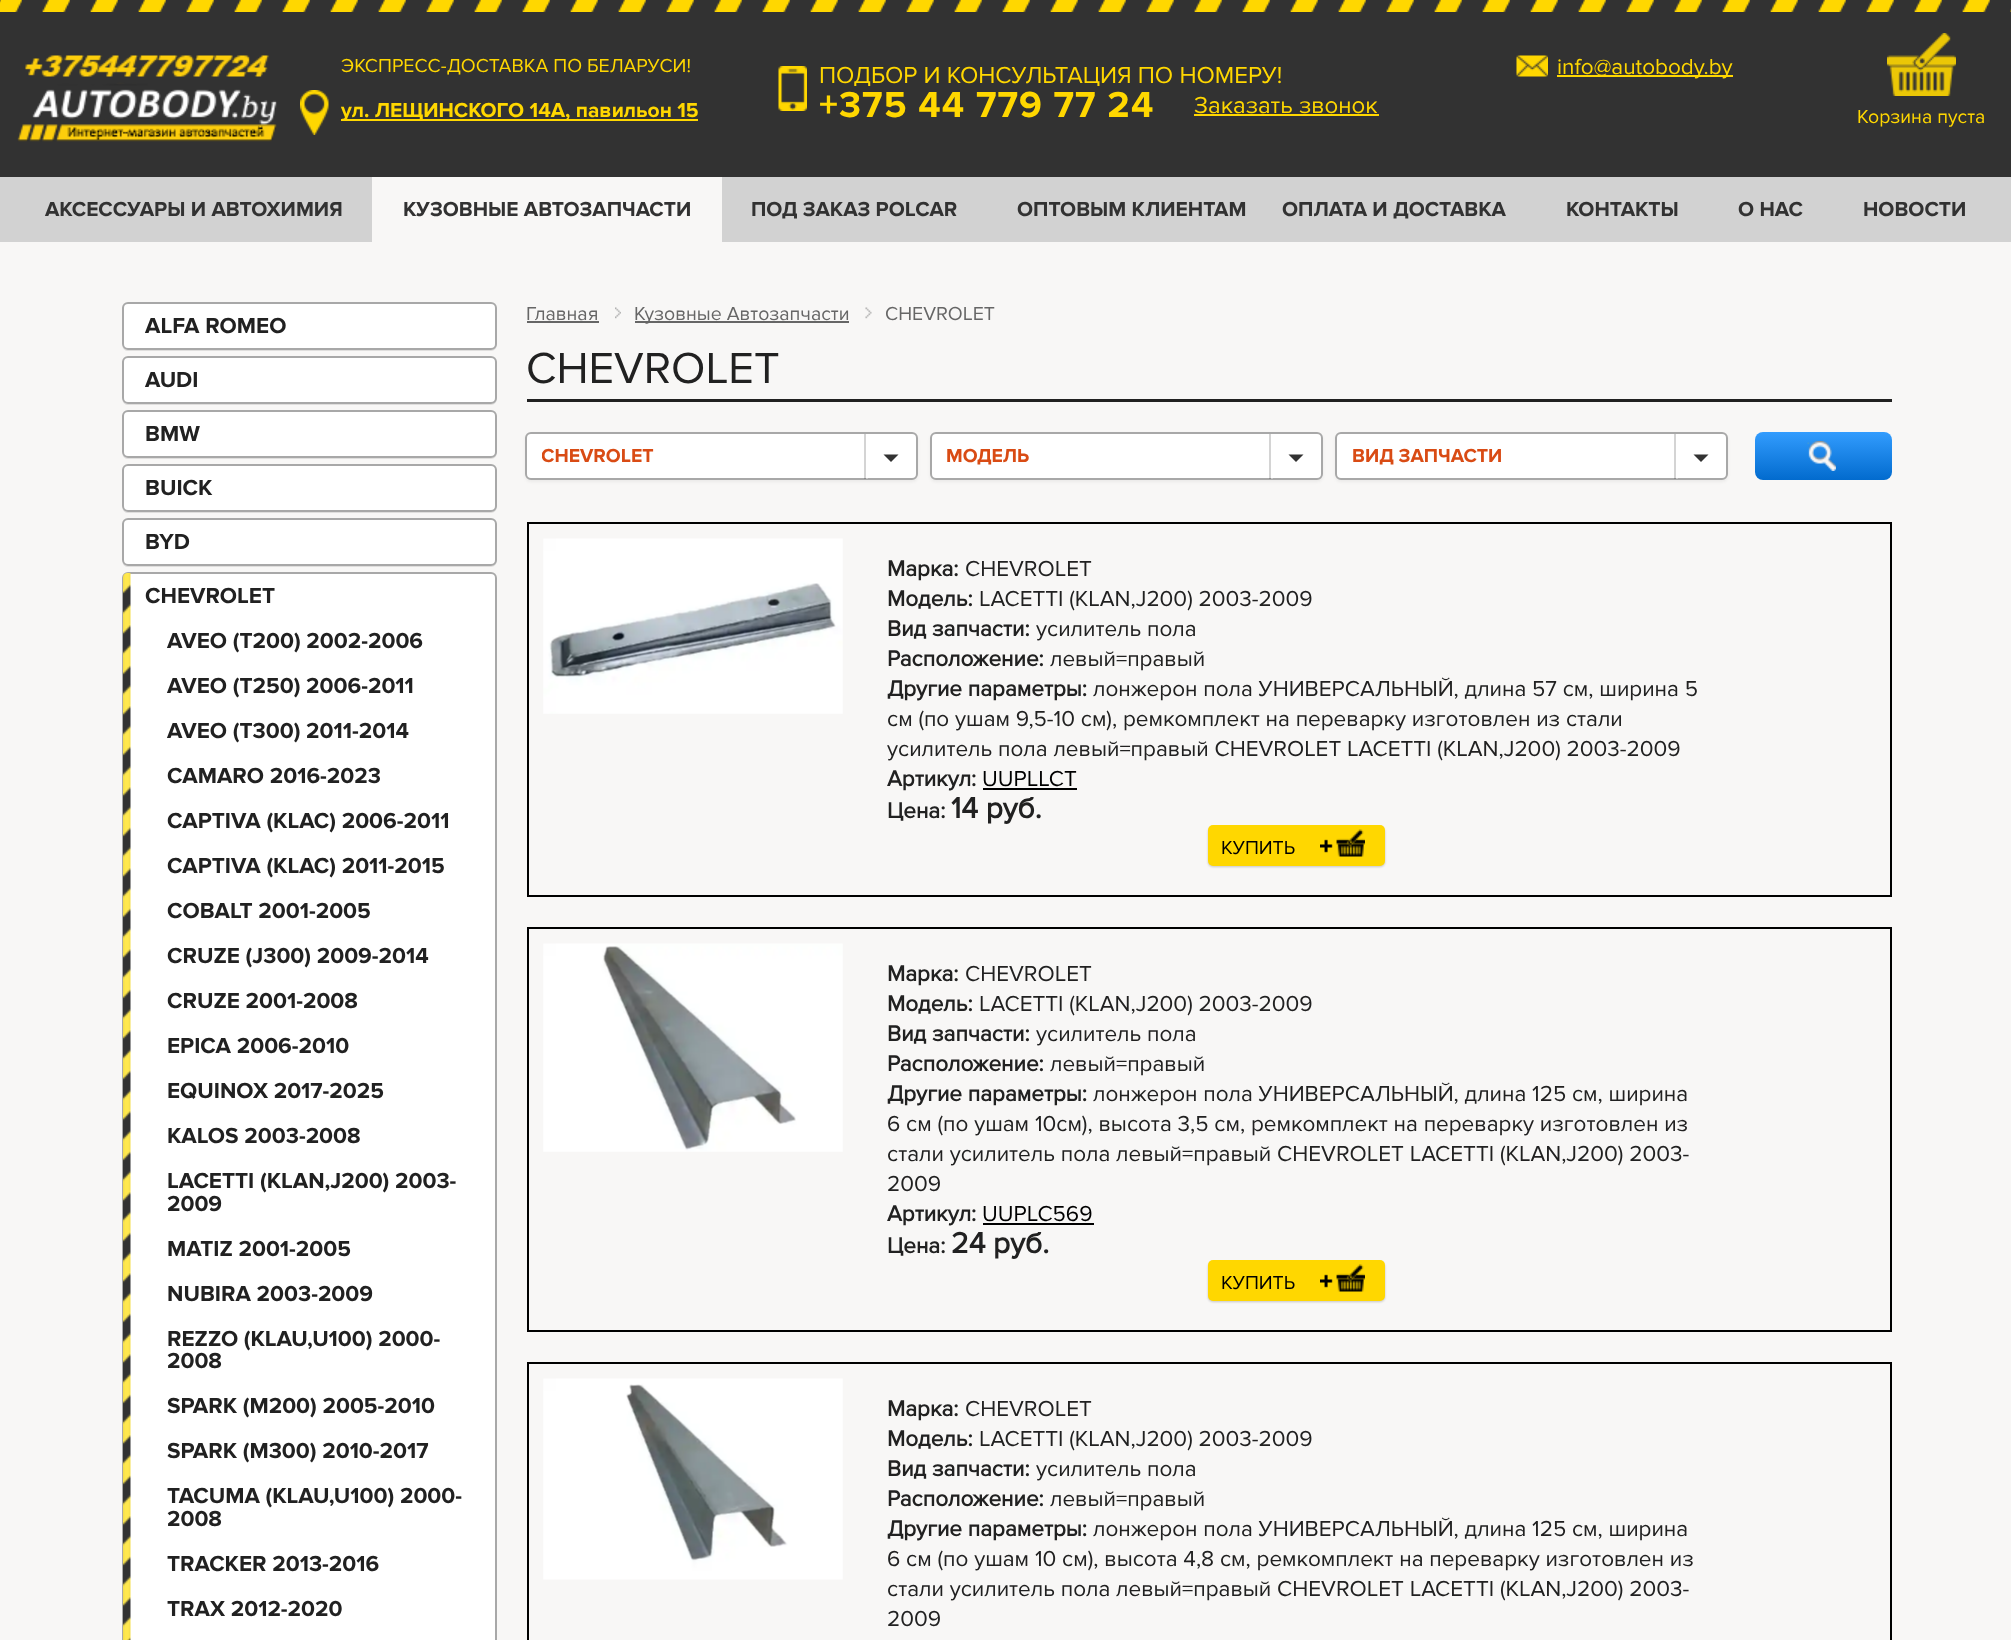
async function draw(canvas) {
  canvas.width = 2011
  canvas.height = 1640
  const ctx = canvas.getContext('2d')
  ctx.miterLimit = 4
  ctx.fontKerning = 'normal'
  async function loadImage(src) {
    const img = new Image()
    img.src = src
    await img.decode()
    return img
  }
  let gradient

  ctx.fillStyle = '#f8f7f6'
  ctx.fillRect(0, 0, 2011, 1640)
  ctx.fillStyle = '#323232'
  ctx.fillRect(0, 12, 2011, 165)
  ctx.drawImage(await loadImage('image0.png'), 0, 0, 2011, 12)
  ctx.drawImage(await loadImage('image1.png'), 17, 55, 260, 87)
  ctx.font = '19.5px Proxima Nova'
  ctx.fillStyle = '#ffd700'
  ctx.fillText('ЭКСПРЕСС-ДОСТАВКА ПО БЕЛАРУСИ!', 341, 72)
  ctx.drawImage(await loadImage('image2.png'), 300, 90, 29, 45)
  ctx.fillRect(341, 119, 357, 2)
  ctx.font = 'bold 21px Proxima Nova'
  ctx.fillText('ул. ЛЕЩИНСКОГО 14А, павильон 15', 341, 117)
  ctx.drawImage(await loadImage('image3.png'), 778, 66, 29, 45)
  ctx.font = '24px Proxima Nova'
  ctx.fillText('ПОДБОР И КОНСУЛЬТАЦИЯ ПО НОМЕРУ!', 819, 83)
  ctx.letterSpacing = '1.1px'
  ctx.font = 'bold 37.5px Proxima Nova'
  ctx.fillText('+375 44 779 77 24', 819, 117)
  ctx.letterSpacing = '0px'
  ctx.font = '24px Proxima Nova'
  ctx.fillText('Заказать звонок', 1194, 113)
  ctx.fillRect(1194, 114, 185, 2)
  ctx.drawImage(await loadImage('image4.png'), 1516, 55, 32, 22)
  ctx.fillRect(1557, 75, 176, 2)
  ctx.font = '22.5px Proxima Nova'
  ctx.fillText('info@autobody.by', 1557, 74)
  ctx.drawImage(await loadImage('image5.png'), 1887, 33, 69, 63)
  ctx.font = '19.5px Proxima Nova'
  ctx.fillText('Корзина пуста', 1857, 123)
  ctx.fillStyle = '#d2d2d2'
  ctx.fillRect(0, 177, 2011, 65)
  ctx.font = 'bold 21px Proxima Nova'
  ctx.fillStyle = '#323232'
  ctx.fillText('АКСЕССУАРЫ И АВТОХИМИЯ', 45, 216)
  ctx.fillStyle = '#f8f7f6'
  ctx.fillRect(372, 177, 350, 65)
  ctx.fillStyle = '#323232'
  ctx.fillText('КУЗОВНЫЕ АВТОЗАПЧАСТИ', 403, 216)
  ctx.fillText('ПОД ЗАКАЗ POLCAR', 751, 216)
  ctx.fillText('ОПТОВЫМ КЛИЕНТАМ', 1017, 216)
  ctx.fillText('ОПЛАТА И ДОСТАВКА', 1282, 216)
  ctx.fillText('КОНТАКТЫ', 1566, 216)
  ctx.fillText('О НАС', 1738, 216)
  ctx.fillText('НОВОСТИ', 1863, 216)
  ctx.fillStyle = '#dfdedd'
  ctx.beginPath()
  ctx.moveTo(122, 346)
  ctx.bezierCurveTo(123, 349, 125, 351, 128, 351)
  ctx.lineTo(491, 351)
  ctx.bezierCurveTo(494, 351, 497, 348, 497, 345)
  ctx.lineTo(497, 309)
  ctx.lineTo(496, 306)
  ctx.lineTo(496, 344)
  ctx.bezierCurveTo(496, 347, 494, 350, 490, 350)
  ctx.lineTo(128, 350)
  ctx.bezierCurveTo(125, 350, 123, 348, 122, 346)
  ctx.closePath()
  ctx.fill()
  ctx.fillStyle = '#fff'
  ctx.beginPath()
  ctx.roundRect(123, 303, 373, 46, 5)
  ctx.fill()
  ctx.strokeStyle = '#a8a8a8'
  ctx.lineWidth = 2
  ctx.stroke()
  ctx.font = 'bold 22.5px Proxima Nova'
  ctx.fillStyle = '#212121'
  ctx.fillText('ALFA ROMEO', 145, 333)
  ctx.fillStyle = '#dfdedd'
  ctx.beginPath()
  ctx.moveTo(122, 400)
  ctx.bezierCurveTo(123, 403, 125, 405, 128, 405)
  ctx.lineTo(491, 405)
  ctx.bezierCurveTo(494, 405, 497, 402, 497, 399)
  ctx.lineTo(497, 363)
  ctx.lineTo(496, 360)
  ctx.lineTo(496, 398)
  ctx.bezierCurveTo(496, 401, 494, 404, 490, 404)
  ctx.lineTo(128, 404)
  ctx.bezierCurveTo(125, 404, 123, 402, 122, 400)
  ctx.closePath()
  ctx.fill()
  ctx.fillStyle = '#fff'
  ctx.beginPath()
  ctx.roundRect(123, 357, 373, 46, 5)
  ctx.fill()
  ctx.stroke()
  ctx.fillStyle = '#212121'
  ctx.fillText('AUDI', 145, 387)
  ctx.fillStyle = '#dfdedd'
  ctx.beginPath()
  ctx.moveTo(122, 454)
  ctx.bezierCurveTo(123, 457, 125, 459, 128, 459)
  ctx.lineTo(491, 459)
  ctx.bezierCurveTo(494, 459, 497, 456, 497, 453)
  ctx.lineTo(497, 417)
  ctx.lineTo(496, 414)
  ctx.lineTo(496, 452)
  ctx.bezierCurveTo(496, 455, 494, 458, 490, 458)
  ctx.lineTo(128, 458)
  ctx.bezierCurveTo(125, 458, 123, 456, 122, 454)
  ctx.closePath()
  ctx.fill()
  ctx.fillStyle = '#fff'
  ctx.beginPath()
  ctx.roundRect(123, 411, 373, 46, 5)
  ctx.fill()
  ctx.stroke()
  ctx.fillStyle = '#212121'
  ctx.fillText('BMW', 145, 441)
  ctx.fillStyle = '#dfdedd'
  ctx.beginPath()
  ctx.moveTo(122, 508)
  ctx.bezierCurveTo(123, 511, 125, 513, 128, 513)
  ctx.lineTo(491, 513)
  ctx.bezierCurveTo(494, 513, 497, 510, 497, 507)
  ctx.lineTo(497, 471)
  ctx.lineTo(496, 468)
  ctx.lineTo(496, 506)
  ctx.bezierCurveTo(496, 509, 494, 512, 490, 512)
  ctx.lineTo(128, 512)
  ctx.bezierCurveTo(125, 512, 123, 510, 122, 508)
  ctx.closePath()
  ctx.fill()
  ctx.fillStyle = '#fff'
  ctx.beginPath()
  ctx.roundRect(123, 465, 373, 46, 5)
  ctx.fill()
  ctx.stroke()
  ctx.fillStyle = '#212121'
  ctx.fillText('BUICK', 145, 495)
  ctx.fillStyle = '#dfdedd'
  ctx.beginPath()
  ctx.moveTo(122, 562)
  ctx.bezierCurveTo(123, 565, 125, 567, 128, 567)
  ctx.lineTo(491, 567)
  ctx.bezierCurveTo(494, 567, 497, 564, 497, 561)
  ctx.lineTo(497, 525)
  ctx.lineTo(496, 522)
  ctx.lineTo(496, 560)
  ctx.bezierCurveTo(496, 563, 494, 566, 490, 566)
  ctx.lineTo(128, 566)
  ctx.bezierCurveTo(125, 566, 123, 564, 122, 562)
  ctx.closePath()
  ctx.fill()
  ctx.fillStyle = '#fff'
  ctx.beginPath()
  ctx.roundRect(123, 519, 373, 46, 5)
  ctx.fill()
  ctx.stroke()
  ctx.fillStyle = '#212121'
  ctx.fillText('BYD', 145, 549)
  ctx.fillStyle = '#fff'
  ctx.beginPath()
  ctx.roundRect(123, 573, 373, 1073, 5)
  ctx.fill()
  ctx.stroke()
  ctx.drawImage(await loadImage('image6.png'), 123, 573, 8, 1067)
  ctx.fillStyle = '#212121'
  ctx.fillText('CHEVROLET', 145, 603)
  ctx.fillText('AVEO (T200) 2002-2006', 167, 648)
  ctx.fillText('AVEO (T250) 2006-2011', 167, 693)
  ctx.fillText('AVEO (T300) 2011-2014', 167, 738)
  ctx.fillText('CAMARO 2016-2023', 167, 783)
  ctx.fillText('CAPTIVA (KLAC) 2006-2011', 167, 828)
  ctx.fillText('CAPTIVA (KLAC) 2011-2015', 167, 873)
  ctx.fillText('COBALT 2001-2005', 167, 918)
  ctx.fillText('CRUZE (J300) 2009-2014', 167, 963)
  ctx.fillText('CRUZE 2001-2008', 167, 1008)
  ctx.fillText('EPICA 2006-2010', 167, 1053)
  ctx.fillText('EQUINOX 2017-2025', 167, 1098)
  ctx.fillText('KALOS 2003-2008', 167, 1143)
  ctx.fillText('LACETTI (KLAN,J200) 2003-', 167, 1188)
  ctx.fillText('2009', 167, 1211)
  ctx.fillText('MATIZ 2001-2005', 167, 1256)
  ctx.fillText('NUBIRA 2003-2009', 167, 1301)
  ctx.fillText('REZZO (KLAU,U100) 2000-', 167, 1346)
  ctx.fillText('2008', 167, 1368)
  ctx.fillText('SPARK (M200) 2005-2010', 167, 1413)
  ctx.fillText('SPARK (M300) 2010-2017', 167, 1458)
  ctx.fillText('TACUMA (KLAU,U100) 2000-', 167, 1503)
  ctx.fillText('2008', 167, 1526)
  ctx.fillText('TRACKER 2013-2016', 167, 1571)
  ctx.fillText('TRAX 2012-2020', 167, 1616)
  ctx.font = '19.5px Proxima Nova'
  ctx.fillStyle = '#666'
  ctx.fillText('Главная', 526, 320)
  ctx.fillRect(527, 321, 72, 2)
  ctx.drawImage(await loadImage('image7.png'), 615, 307, 6, 12)
  ctx.fillRect(635, 321, 214, 2)
  ctx.fillText('Кузовные Автозапчасти', 634, 320)
  ctx.drawImage(await loadImage('image8.png'), 865, 307, 7, 12)
  ctx.fillText('CHEVROLET', 885, 320)
  ctx.fillStyle = '#212121'
  ctx.fillRect(527, 399, 1365, 3)
  ctx.font = '45px Proxima Nova'
  ctx.fillText('CHEVROLET', 526, 383)
  ctx.fillStyle = '#0000000d'
  ctx.filter = 'blur(1.5px)'
  ctx.beginPath()
  ctx.roundRect(525, 434, 393, 48, 6)
  ctx.fill()
  ctx.filter = 'none'
  ctx.fillStyle = '#fff'
  ctx.beginPath()
  ctx.roundRect(526, 433, 391, 46, 5)
  ctx.fill()
  ctx.stroke()
  ctx.save()
  ctx.beginPath()
  ctx.rect(542, 434, 307, 46)
  ctx.clip()
  ctx.font = 'bold 19.5px Proxima Nova'
  ctx.fillStyle = '#d94b14'
  ctx.fillText('CHEVROLET', 541, 462)
  ctx.restore()
  ctx.fillStyle = '#ffffff54'
  ctx.fillRect(866, 478, 2, 1)
  ctx.fillStyle = '#0000002b'
  ctx.fillRect(864, 434, 2, 45)
  ctx.fillStyle = '#323232'
  ctx.beginPath()
  ctx.moveTo(883.5, 454.5)
  ctx.lineTo(898.5, 454.5)
  ctx.lineTo(891, 462)
  ctx.closePath()
  ctx.fill()
  ctx.fillStyle = '#0000000d'
  ctx.filter = 'blur(1.5px)'
  ctx.beginPath()
  ctx.roundRect(930, 434, 393, 48, 6)
  ctx.fill()
  ctx.filter = 'none'
  ctx.fillStyle = '#fff'
  ctx.beginPath()
  ctx.roundRect(931, 433, 391, 46, 5)
  ctx.fill()
  ctx.stroke()
  ctx.font = 'bold 19.5px Proxima Nova'
  ctx.fillStyle = '#d94b14'
  ctx.fillText('МОДЕЛЬ', 946, 462)
  ctx.fillStyle = '#ffffff54'
  ctx.fillRect(1271, 478, 2, 1)
  ctx.fillStyle = '#0000002b'
  ctx.fillRect(1269, 434, 2, 45)
  ctx.fillStyle = '#323232'
  ctx.beginPath()
  ctx.moveTo(1288.5, 454.5)
  ctx.lineTo(1303.5, 454.5)
  ctx.lineTo(1296, 462)
  ctx.closePath()
  ctx.fill()
  ctx.fillStyle = '#0000000d'
  ctx.filter = 'blur(1.5px)'
  ctx.beginPath()
  ctx.roundRect(1335, 434, 393, 48, 6)
  ctx.fill()
  ctx.filter = 'none'
  ctx.fillStyle = '#fff'
  ctx.beginPath()
  ctx.roundRect(1336, 433, 391, 46, 5)
  ctx.fill()
  ctx.stroke()
  ctx.fillStyle = '#d94b14'
  ctx.fillText('ВИД ЗАПЧАСТИ', 1352, 462)
  ctx.fillStyle = '#ffffff54'
  ctx.fillRect(1676, 478, 2, 1)
  ctx.fillStyle = '#0000002b'
  ctx.fillRect(1674, 434, 2, 45)
  ctx.fillStyle = '#323232'
  ctx.beginPath()
  ctx.moveTo(1693.5, 454.5)
  ctx.lineTo(1708.5, 454.5)
  ctx.lineTo(1701, 462)
  ctx.closePath()
  ctx.fill()
  gradient = ctx.createLinearGradient(1823, 432, 1823, 480)
  gradient.addColorStop(0, '#329cfe')
  gradient.addColorStop(1, '#026bce')
  ctx.fillStyle = gradient
  ctx.beginPath()
  ctx.roundRect(1755, 432, 137, 48, 8)
  ctx.fill()
  ctx.drawImage(await loadImage('image9.png'), 1807, 441, 29, 30)
  ctx.strokeStyle = '#000'
  ctx.strokeRect(528, 523, 1363, 373)
  ctx.drawImage(await loadImage('image10.png'), 543, 538, 300, 176)
  ctx.font = 'bold 22.5px "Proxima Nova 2"'
  ctx.fillStyle = '#212121'
  ctx.fillText('Марка:', 887, 576)
  ctx.font = '22.5px Proxima Nova'
  ctx.fillText('CHEVROLET', 965, 576)
  ctx.font = 'bold 22.5px "Proxima Nova 2"'
  ctx.fillText('Модель:', 887, 606)
  ctx.font = '22.5px Proxima Nova'
  ctx.fillText('LACETTI (KLAN,J200) 2003-2009', 979, 606)
  ctx.font = 'bold 22.5px "Proxima Nova 2"'
  ctx.fillText('Вид запчасти:', 887, 636)
  ctx.font = '22.5px Proxima Nova'
  ctx.fillText('усилитель пола', 1036, 636)
  ctx.font = 'bold 22.5px "Proxima Nova 2"'
  ctx.fillText('Расположение:', 887, 666)
  ctx.font = '22.5px Proxima Nova'
  ctx.fillText('левый=правый', 1050, 666)
  ctx.font = 'bold 22.5px "Proxima Nova 2"'
  ctx.fillText('Другие параметры:', 887, 696)
  ctx.font = '22.5px Proxima Nova'
  ctx.fillText('лонжерон пола УНИВЕРСАЛЬНЫЙ, длина 57 см, ширина 5', 1093, 696)
  ctx.fillText('см (по ушам 9,5-10 см), ремкомплект на переварку изготовлен из стали', 887, 726)
  ctx.fillText('усилитель пола левый=правый CHEVROLET LACETTI (KLAN,J200) 2003-2009', 887, 756)
  ctx.font = 'bold 22.5px "Proxima Nova 2"'
  ctx.fillText('Артикул:', 887, 786)
  ctx.font = '22.5px Proxima Nova'
  ctx.fillStyle = '#000'
  ctx.fillText('UUPLLCT', 982, 786)
  ctx.fillRect(983, 788, 94, 2)
  ctx.font = 'bold 22.5px "Proxima Nova 2"'
  ctx.fillStyle = '#212121'
  ctx.fillText('Цена:', 887, 818)
  ctx.font = 'bold 30px "Proxima Nova 2"'
  ctx.fillText('14 руб.', 951, 818)
  ctx.fillStyle = '#00000033'
  ctx.filter = 'blur(1px)'
  ctx.beginPath()
  ctx.roundRect(1208, 827, 177, 40, 5)
  ctx.fill()
  ctx.filter = 'none'
  ctx.fillStyle = '#ffd700'
  ctx.beginPath()
  ctx.roundRect(1208, 825, 177, 41, 5)
  ctx.fill()
  ctx.font = '19.5px Proxima Nova'
  ctx.fillStyle = '#000'
  ctx.fillText('КУПИТЬ', 1221, 854)
  ctx.drawImage(await loadImage('image11.png'), 1320, 829, 45, 28)
  ctx.strokeRect(528, 928, 1363, 403)
  ctx.drawImage(await loadImage('image12.png'), 543, 943, 300, 209)
  ctx.font = 'bold 22.5px "Proxima Nova 2"'
  ctx.fillStyle = '#212121'
  ctx.fillText('Марка:', 887, 981)
  ctx.font = '22.5px Proxima Nova'
  ctx.fillText('CHEVROLET', 965, 981)
  ctx.font = 'bold 22.5px "Proxima Nova 2"'
  ctx.fillText('Модель:', 887, 1011)
  ctx.font = '22.5px Proxima Nova'
  ctx.fillText('LACETTI (KLAN,J200) 2003-2009', 979, 1011)
  ctx.font = 'bold 22.5px "Proxima Nova 2"'
  ctx.fillText('Вид запчасти:', 887, 1041)
  ctx.font = '22.5px Proxima Nova'
  ctx.fillText('усилитель пола', 1036, 1041)
  ctx.font = 'bold 22.5px "Proxima Nova 2"'
  ctx.fillText('Расположение:', 887, 1071)
  ctx.font = '22.5px Proxima Nova'
  ctx.fillText('левый=правый', 1050, 1071)
  ctx.font = 'bold 22.5px "Proxima Nova 2"'
  ctx.fillText('Другие параметры:', 887, 1101)
  ctx.font = '22.5px Proxima Nova'
  ctx.fillText('лонжерон пола УНИВЕРСАЛЬНЫЙ, длина 125 см, ширина', 1093, 1101)
  ctx.fillText('6 см (по ушам 10см), высота 3,5 см, ремкомплект на переварку изготовлен из', 887, 1131)
  ctx.fillText('стали усилитель пола левый=правый CHEVROLET LACETTI (KLAN,J200) 2003-', 887, 1161)
  ctx.fillText('2009', 887, 1191)
  ctx.font = 'bold 22.5px "Proxima Nova 2"'
  ctx.fillText('Артикул:', 887, 1221)
  ctx.font = '22.5px Proxima Nova'
  ctx.fillStyle = '#000'
  ctx.fillText('UUPLC569', 982, 1221)
  ctx.fillRect(983, 1223, 111, 2)
  ctx.font = 'bold 22.5px "Proxima Nova 2"'
  ctx.fillStyle = '#212121'
  ctx.fillText('Цена:', 887, 1253)
  ctx.font = 'bold 30px "Proxima Nova 2"'
  ctx.fillText('24 руб.', 951, 1253)
  ctx.fillStyle = '#00000033'
  ctx.filter = 'blur(1px)'
  ctx.beginPath()
  ctx.roundRect(1208, 1262, 177, 40, 5)
  ctx.fill()
  ctx.filter = 'none'
  ctx.fillStyle = '#ffd700'
  ctx.beginPath()
  ctx.roundRect(1208, 1260, 177, 41, 5)
  ctx.fill()
  ctx.font = '19.5px Proxima Nova'
  ctx.fillStyle = '#000'
  ctx.fillText('КУПИТЬ', 1221, 1289)
  ctx.drawImage(await loadImage('image11.png'), 1320, 1264, 45, 28)
  ctx.strokeRect(528, 1363, 1363, 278)
  ctx.drawImage(await loadImage('image13.png'), 543, 1378, 300, 202)
  ctx.font = 'bold 22.5px "Proxima Nova 2"'
  ctx.fillStyle = '#212121'
  ctx.fillText('Марка:', 887, 1416)
  ctx.font = '22.5px Proxima Nova'
  ctx.fillText('CHEVROLET', 965, 1416)
  ctx.font = 'bold 22.5px "Proxima Nova 2"'
  ctx.fillText('Модель:', 887, 1446)
  ctx.font = '22.5px Proxima Nova'
  ctx.fillText('LACETTI (KLAN,J200) 2003-2009', 979, 1446)
  ctx.font = 'bold 22.5px "Proxima Nova 2"'
  ctx.fillText('Вид запчасти:', 887, 1476)
  ctx.font = '22.5px Proxima Nova'
  ctx.fillText('усилитель пола', 1036, 1476)
  ctx.font = 'bold 22.5px "Proxima Nova 2"'
  ctx.fillText('Расположение:', 887, 1506)
  ctx.font = '22.5px Proxima Nova'
  ctx.fillText('левый=правый', 1050, 1506)
  ctx.font = 'bold 22.5px "Proxima Nova 2"'
  ctx.fillText('Другие параметры:', 887, 1536)
  ctx.font = '22.5px Proxima Nova'
  ctx.fillText('лонжерон пола УНИВЕРСАЛЬНЫЙ, длина 125 см, ширина', 1093, 1536)
  ctx.fillText('6 см (по ушам 10 см), высота 4,8 см, ремкомплект на переварку изготовлен из', 887, 1566)
  ctx.fillText('стали усилитель пола левый=правый CHEVROLET LACETTI (KLAN,J200) 2003-', 887, 1596)
  ctx.fillText('2009', 887, 1626)
}

draw(document.querySelector('canvas'))
